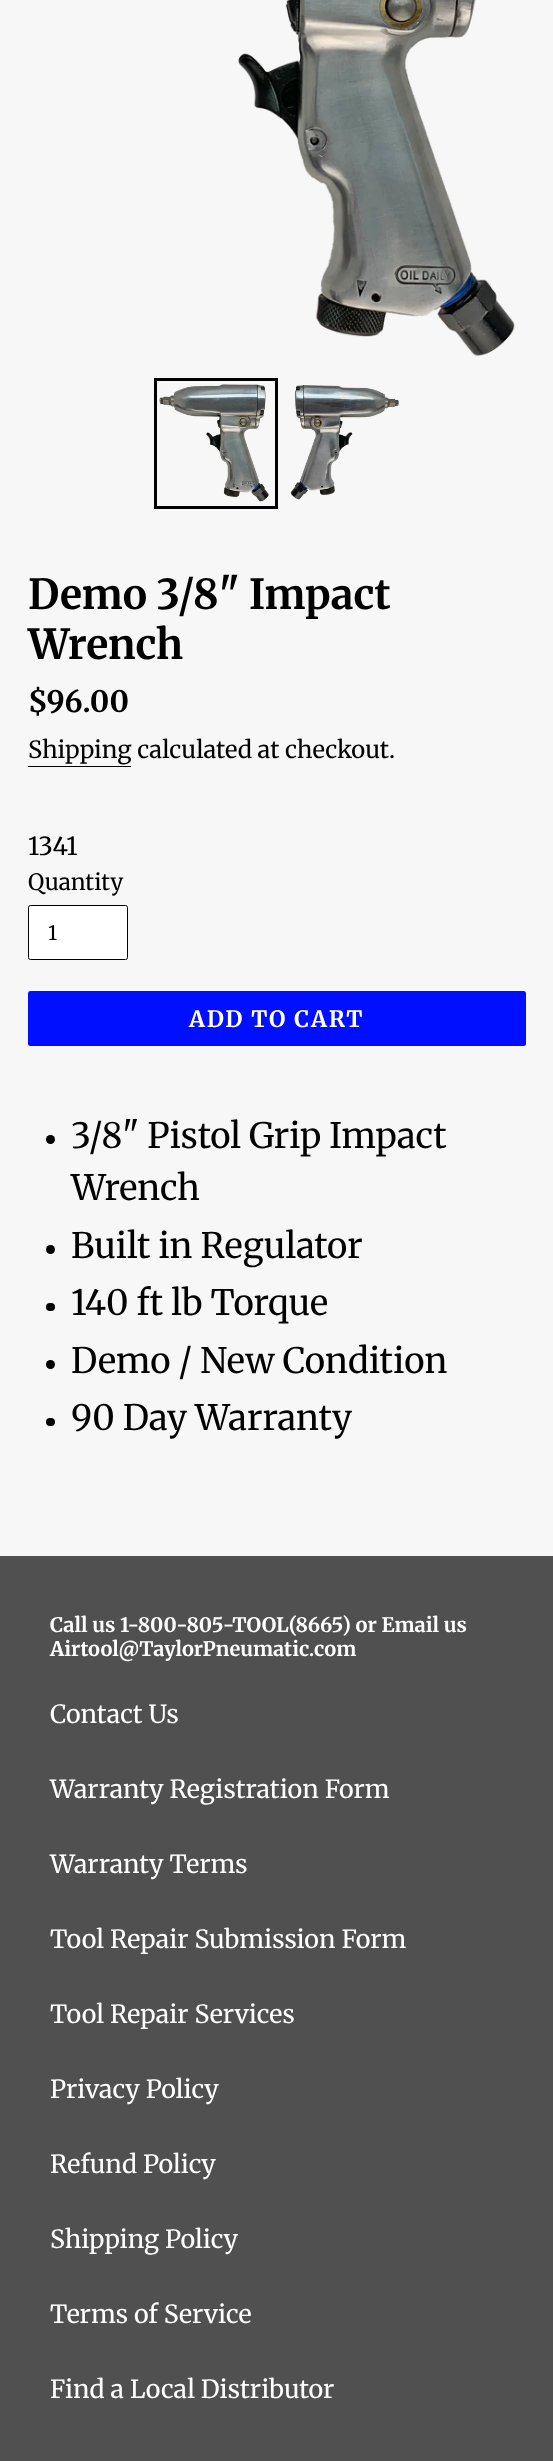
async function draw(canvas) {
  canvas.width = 553
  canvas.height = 2461
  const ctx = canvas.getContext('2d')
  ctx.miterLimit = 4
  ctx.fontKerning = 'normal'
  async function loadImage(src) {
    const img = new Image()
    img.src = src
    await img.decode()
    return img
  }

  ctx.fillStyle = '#f7f7f7'
  ctx.fillRect(0, 0, 553, 2461)
  ctx.drawImage(await loadImage('image0.png'), 238, 0, 277, 356)
  ctx.strokeStyle = '#000'
  ctx.lineWidth = 3
  ctx.strokeRect(155.5, 379.5, 121, 128)
  ctx.drawImage(await loadImage('image1.png'), 159, 384, 110, 118)
  ctx.drawImage(await loadImage('image2.png'), 290, 385, 109, 115)
  ctx.font = 'bold 41.25px Merriweather'
  ctx.fillStyle = '#000'
  ctx.fillText('Demo 3/8" Impact', 28, 609)
  ctx.fillText('Wrench', 28, 659)
  ctx.font = 'bold 29.5px "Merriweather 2"'
  ctx.fillText('$96.00', 28, 712)
  ctx.font = '23.75px Merriweather'
  ctx.fillText('Shipping calculated at checkout.', 28, 758)
  ctx.fillRect(28, 766, 103, 1)
  ctx.font = '25px Merriweather'
  ctx.fillText('1341', 28, 855)
  ctx.font = '22.5px Merriweather'
  ctx.fillText('Quantity', 28, 890)
  ctx.fillStyle = '#fff'
  ctx.beginPath()
  ctx.roundRect(28.5, 905.5, 99, 54, 2)
  ctx.fill()
  ctx.lineWidth = 1
  ctx.stroke()
  ctx.font = '20px Merriweather'
  ctx.fillStyle = '#000'
  ctx.fillText('1', 48, 940)
  ctx.fillStyle = '#000fff'
  ctx.beginPath()
  ctx.roundRect(28, 991, 498, 55, 2.5)
  ctx.fill()
  ctx.letterSpacing = '1.75px'
  ctx.font = 'bold 22.5px "Merriweather 2"'
  ctx.fillStyle = '#fff'
  ctx.fillText('ADD TO CART', 189, 1027)
  ctx.fillStyle = '#000'
  ctx.beginPath()
  ctx.arc(50.5, 1139.5, 4.5, 0, 2 * Math.PI)
  ctx.fill()
  ctx.letterSpacing = '0px'
  ctx.font = '35px "Merriweather 2"'
  ctx.fillText('3/8" Pistol Grip Impact', 71, 1148)
  ctx.fillText('Wrench', 71, 1200)
  ctx.beginPath()
  ctx.arc(50.5, 1249.5, 4.5, 0, 2 * Math.PI)
  ctx.fill()
  ctx.fillText('Built in Regulator', 71, 1258)
  ctx.beginPath()
  ctx.roundRect(46, 1303, 9, 8, 4)
  ctx.fill()
  ctx.fillText('140 ft lb Torque', 71, 1315)
  ctx.beginPath()
  ctx.arc(50.5, 1364.5, 4.5, 0, 2 * Math.PI)
  ctx.fill()
  ctx.fillText('Demo / New Condition', 71, 1373)
  ctx.beginPath()
  ctx.roundRect(46, 1418, 9, 8, 4)
  ctx.fill()
  ctx.fillText('90 Day Warranty', 71, 1430)
  ctx.fillStyle = '#505050'
  ctx.fillRect(0, 1556, 553, 905)
  ctx.font = 'bold 20px "Merriweather 2"'
  ctx.fillStyle = '#fff'
  ctx.fillText('Call us 1-800-805-TOOL(8665) or Email us', 50, 1632)
  ctx.fillText('Airtool@TaylorPneumatic.com', 50, 1656)
  ctx.font = '25px Merriweather'
  ctx.fillText('Contact Us', 50, 1723)
  ctx.fillText('Warranty Registration Form', 50, 1798)
  ctx.fillText('Warranty Terms', 50, 1873)
  ctx.fillText('Tool Repair Submission Form', 50, 1948)
  ctx.fillText('Tool Repair Services', 50, 2023)
  ctx.fillText('Privacy Policy', 50, 2098)
  ctx.fillText('Refund Policy', 50, 2173)
  ctx.fillText('Shipping Policy', 50, 2248)
  ctx.fillText('Terms of Service', 50, 2323)
  ctx.fillText('Find a Local Distributor', 50, 2398)
}

draw(document.querySelector('canvas'))
